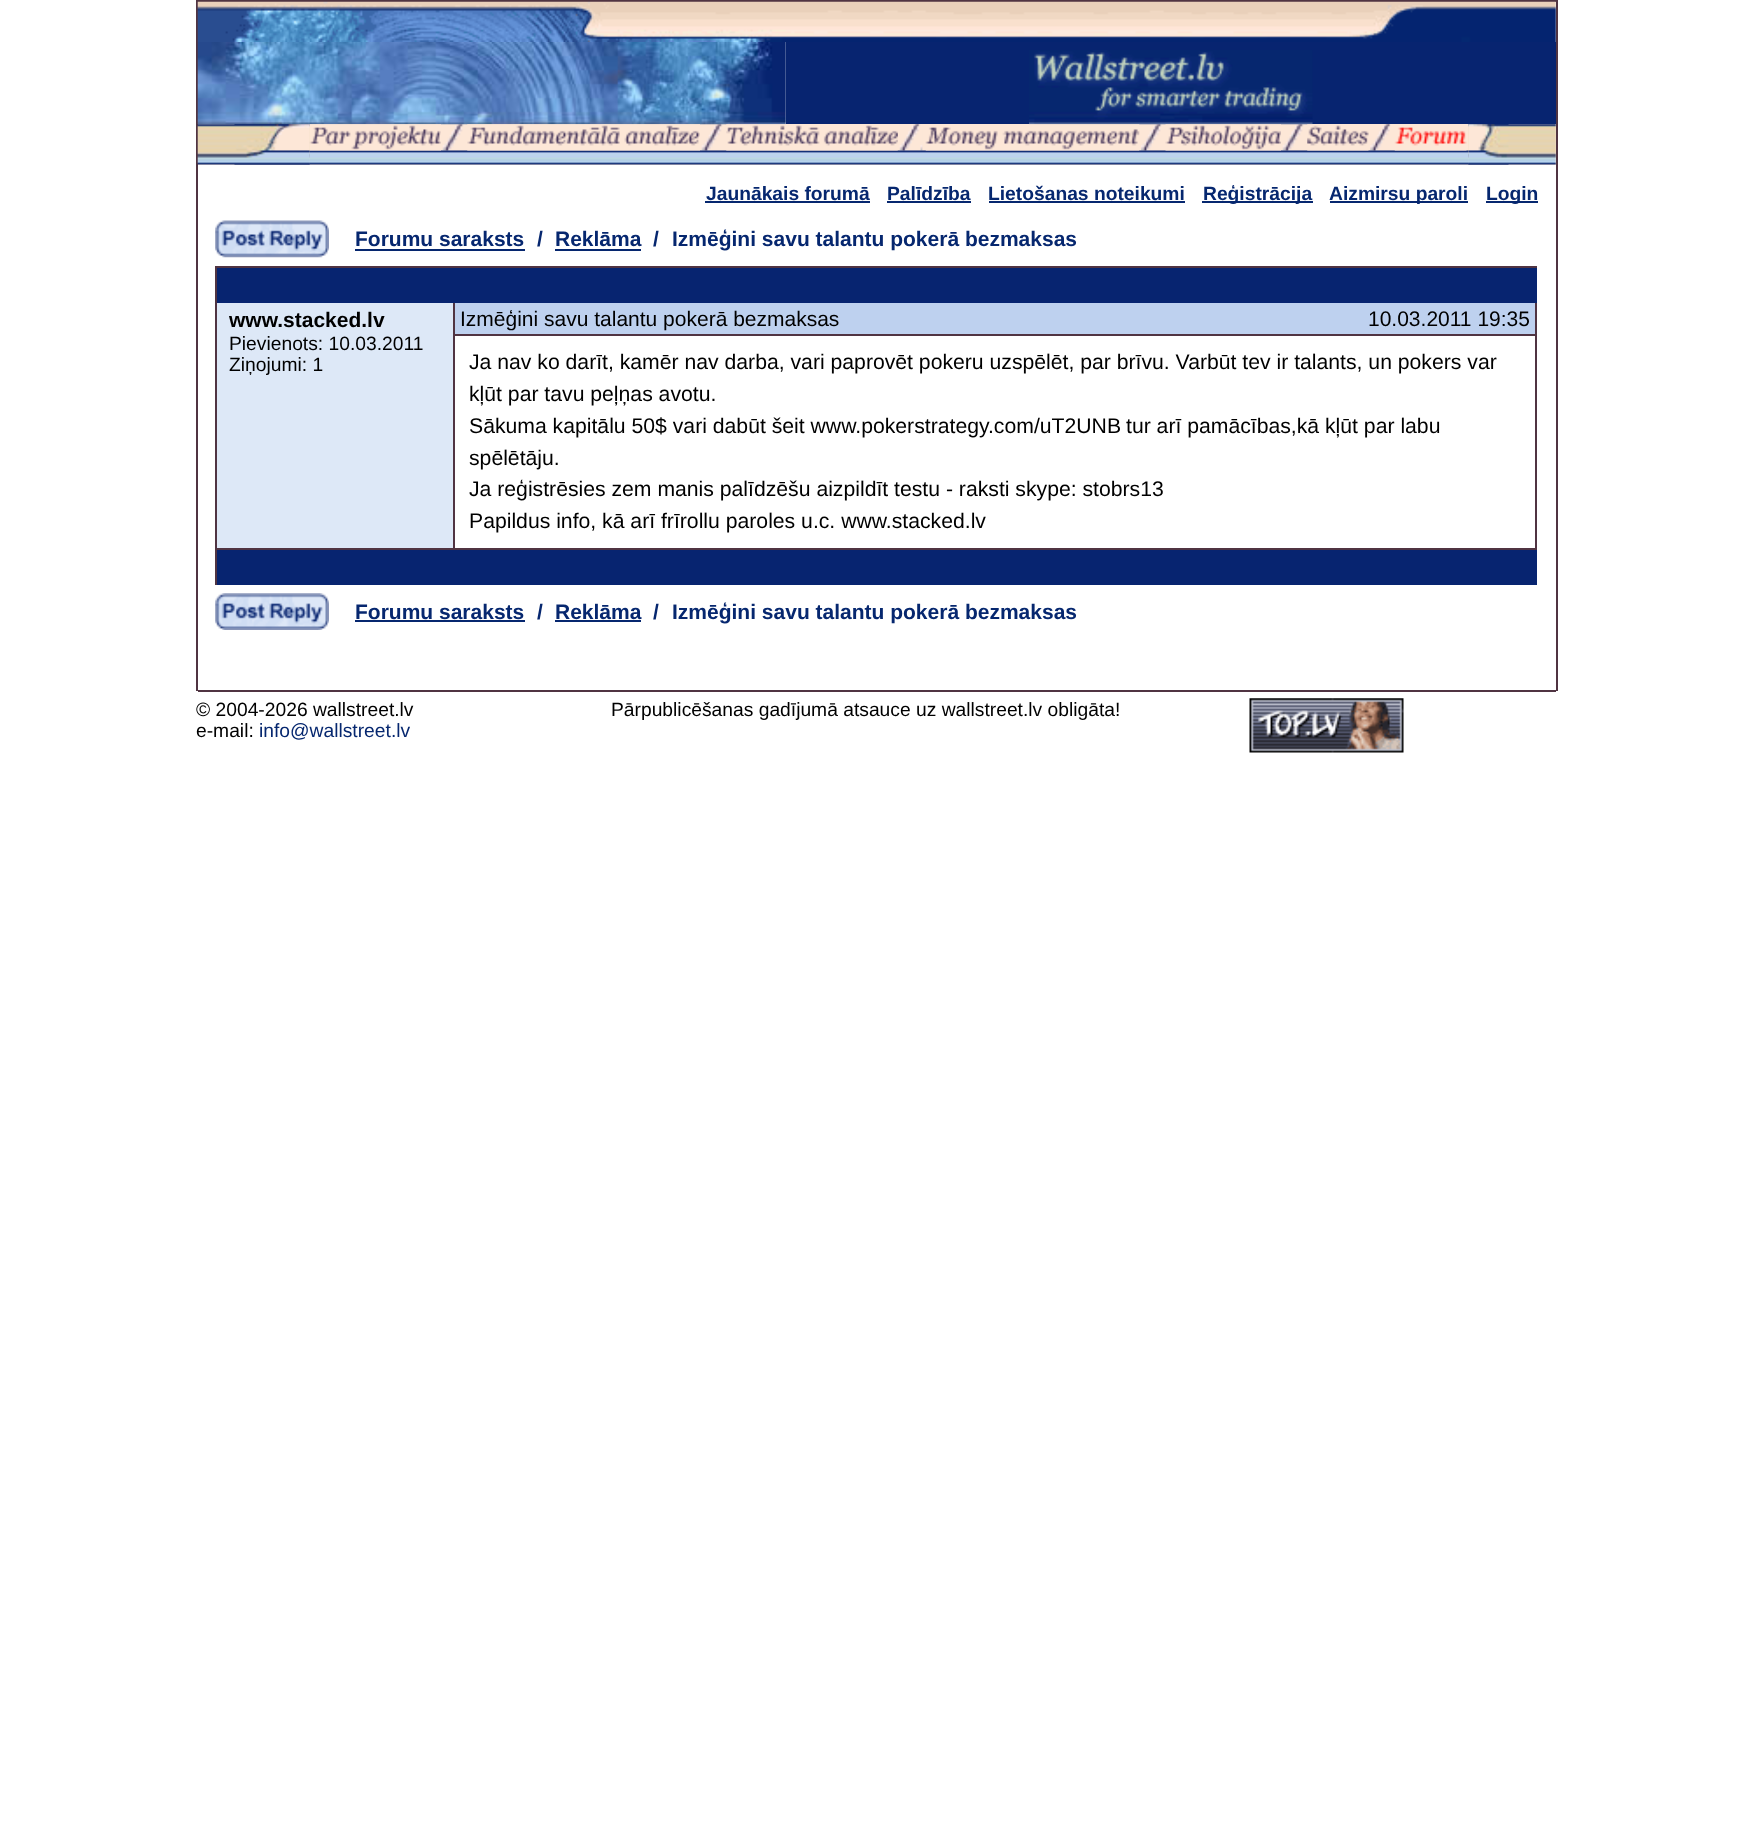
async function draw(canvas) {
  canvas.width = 1753
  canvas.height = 1823
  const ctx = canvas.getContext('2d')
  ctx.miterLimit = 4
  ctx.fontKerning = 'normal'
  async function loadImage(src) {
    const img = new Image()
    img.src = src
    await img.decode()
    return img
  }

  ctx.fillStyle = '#fff'
  ctx.fillRect(0, 0, 1753, 1823)
  ctx.fillStyle = '#503442'
  ctx.fillRect(196, 0, 1362, 691)
  ctx.fillStyle = '#fff'
  ctx.fillRect(198, 2, 1358, 688)
  ctx.drawImage(await loadImage('image0.png'), 197, 1, 1359, 41)
  ctx.fillStyle = '#fde7d7'
  ctx.fillRect(198, 124, 1358, 41)
  ctx.drawImage(await loadImage('image3.png'), 197, 124, 113, 41)
  ctx.drawImage(await loadImage('image6.png'), 442, 124, 22, 27)
  ctx.drawImage(await loadImage('image8.png'), 701, 124, 22, 27)
  ctx.drawImage(await loadImage('image1.png'), 197, 42, 589, 83)
  ctx.fillStyle = '#072470'
  ctx.fillRect(786, 42, 770, 82)
  ctx.drawImage(await loadImage('image12.png'), 1141, 124, 21, 27)
  ctx.drawImage(await loadImage('image14.png'), 1282, 124, 22, 27)
  ctx.drawImage(await loadImage('image2.png'), 1029, 50, 284, 75)
  ctx.drawImage(await loadImage('image10.png'), 899, 124, 24, 27)
  ctx.drawImage(await loadImage('image16.png'), 1370, 124, 21, 27)
  ctx.drawImage(await loadImage('image18.png'), 309, 150, 1160, 15)
  ctx.drawImage(await loadImage('image4.png'), 234, 124, 76, 41)
  ctx.drawImage(await loadImage('image5.png'), 309, 124, 132, 27)
  ctx.drawImage(await loadImage('image7.png'), 467, 124, 233, 27)
  ctx.drawImage(await loadImage('image9.png'), 726, 124, 172, 27)
  ctx.drawImage(await loadImage('image11.png'), 925, 124, 215, 27)
  ctx.drawImage(await loadImage('image13.png'), 1165, 124, 116, 27)
  ctx.drawImage(await loadImage('image15.png'), 1307, 124, 62, 27)
  ctx.drawImage(await loadImage('image17.png'), 1394, 127, 73, 24)
  ctx.drawImage(await loadImage('image19.png'), 1468, 124, 88, 41)
  ctx.drawImage(await loadImage('image20.png'), 1468, 124, 41, 41)
  ctx.font = 'bold 19.25px Liberation Sans'
  ctx.fillStyle = '#06276f'
  ctx.fillText('Jaunākais forumā', 706, 200)
  ctx.fillRect(705, 201, 165, 2)
  ctx.fillText('Palīdzība', 887, 200)
  ctx.fillRect(887, 201, 84, 2)
  ctx.fillText('Lietošanas noteikumi', 988, 200)
  ctx.fillRect(989, 201, 196, 2)
  ctx.fillRect(1202, 201, 111, 2)
  ctx.fillText('Reģistrācija', 1203, 200)
  ctx.fillRect(1330, 201, 138, 2)
  ctx.fillText('Aizmirsu paroli', 1329, 200)
  ctx.fillRect(1486, 201, 52, 2)
  ctx.fillText('Login', 1486, 200)
  ctx.drawImage(await loadImage('image21.png'), 215, 220, 114, 38)
  ctx.font = 'bold 21px Liberation Sans'
  ctx.fillText('Forumu saraksts', 355, 246)
  ctx.fillRect(355, 249, 170, 2)
  ctx.fillText('/', 537, 246)
  ctx.fillText('Reklāma', 555, 246)
  ctx.fillRect(555, 249, 86, 2)
  ctx.fillText('/', 653, 246)
  ctx.fillText('Izmēģini savu talantu pokerā bezmaksas', 672, 246)
  ctx.fillStyle = '#503442'
  ctx.fillRect(215, 266, 1322, 2)
  ctx.fillRect(215, 266, 2, 319)
  ctx.fillStyle = '#072470'
  ctx.fillRect(217, 268, 1320, 35)
  ctx.fillStyle = '#dde8f7'
  ctx.fillRect(217, 303, 236, 245)
  ctx.fillStyle = '#503442'
  ctx.fillRect(453, 303, 2, 247)
  ctx.fillRect(217, 548, 238, 2)
  ctx.fillStyle = '#000'
  ctx.fillText('www.stacked.lv', 229, 327)
  ctx.font = '19.25px Liberation Sans'
  ctx.fillText('Pievienots: 10.03.2011', 229, 350)
  ctx.fillText('Ziņojumi: 1', 229, 371)
  ctx.fillStyle = '#bed1ef'
  ctx.fillRect(455, 303, 1080, 31)
  ctx.fillStyle = '#503442'
  ctx.fillRect(1535, 303, 2, 247)
  ctx.fillRect(455, 334, 1082, 2)
  ctx.font = '21px Liberation Sans'
  ctx.fillStyle = '#000'
  ctx.fillText('Izmēģini savu talantu pokerā bezmaksas', 460, 326)
  ctx.fillText('10.03.2011 19:35', 1368, 326)
  ctx.fillStyle = '#503442'
  ctx.fillRect(455, 548, 1082, 2)
  ctx.font = '21.2px Liberation Sans'
  ctx.fillStyle = '#000'
  ctx.fillText('Ja nav ko darīt, kamēr nav darba, vari paprovēt pokeru uzspēlēt, par brīvu. Varbūt tev ir talants, un pokers var', 469, 369)
  ctx.fillText('kļūt par tavu peļņas avotu.', 469, 401)
  ctx.fillText('Sākuma kapitālu 50$ vari dabūt šeit www.pokerstrategy.com/uT2UNB', 469, 433)
  ctx.fillText('tur arī pamācības,kā kļūt par labu', 1126, 433)
  ctx.fillText('spēlētāju.', 469, 465)
  ctx.fillText('Ja reģistrēsies zem manis palīdzēšu aizpildīt testu - raksti skype: stobrs13', 469, 496)
  ctx.fillText('Papildus info, kā arī frīrollu paroles u.c. www.stacked.lv', 469, 528)
  ctx.fillStyle = '#072470'
  ctx.fillRect(217, 550, 1320, 35)
  ctx.drawImage(await loadImage('image22.png'), 215, 593, 114, 37)
  ctx.font = 'bold 21px Liberation Sans'
  ctx.fillStyle = '#06276f'
  ctx.fillText('Forumu saraksts', 355, 619)
  ctx.fillRect(355, 620, 170, 2)
  ctx.fillText('/', 537, 619)
  ctx.fillText('Reklāma', 555, 619)
  ctx.fillRect(555, 620, 86, 2)
  ctx.fillText('/', 653, 619)
  ctx.fillText('Izmēģini savu talantu pokerā bezmaksas', 672, 619)
  ctx.fillStyle = '#503442'
  ctx.fillRect(198, 691, 1358, 1)
  ctx.font = '19.25px Liberation Sans'
  ctx.fillStyle = '#000'
  ctx.fillText('© 2004-2026 wallstreet.lv', 196, 716)
  ctx.fillText('e-mail:', 196, 737)
  ctx.fillStyle = '#06276f'
  ctx.fillText('info@wallstreet.lv', 259, 737)
  ctx.fillStyle = '#000'
  ctx.fillText('Pārpublicēšanas gadījumā atsauce uz wallstreet.lv obligāta!', 611, 716)
  ctx.drawImage(await loadImage('image23.png'), 1249, 698, 155, 55)
}

draw(document.querySelector('canvas'))
